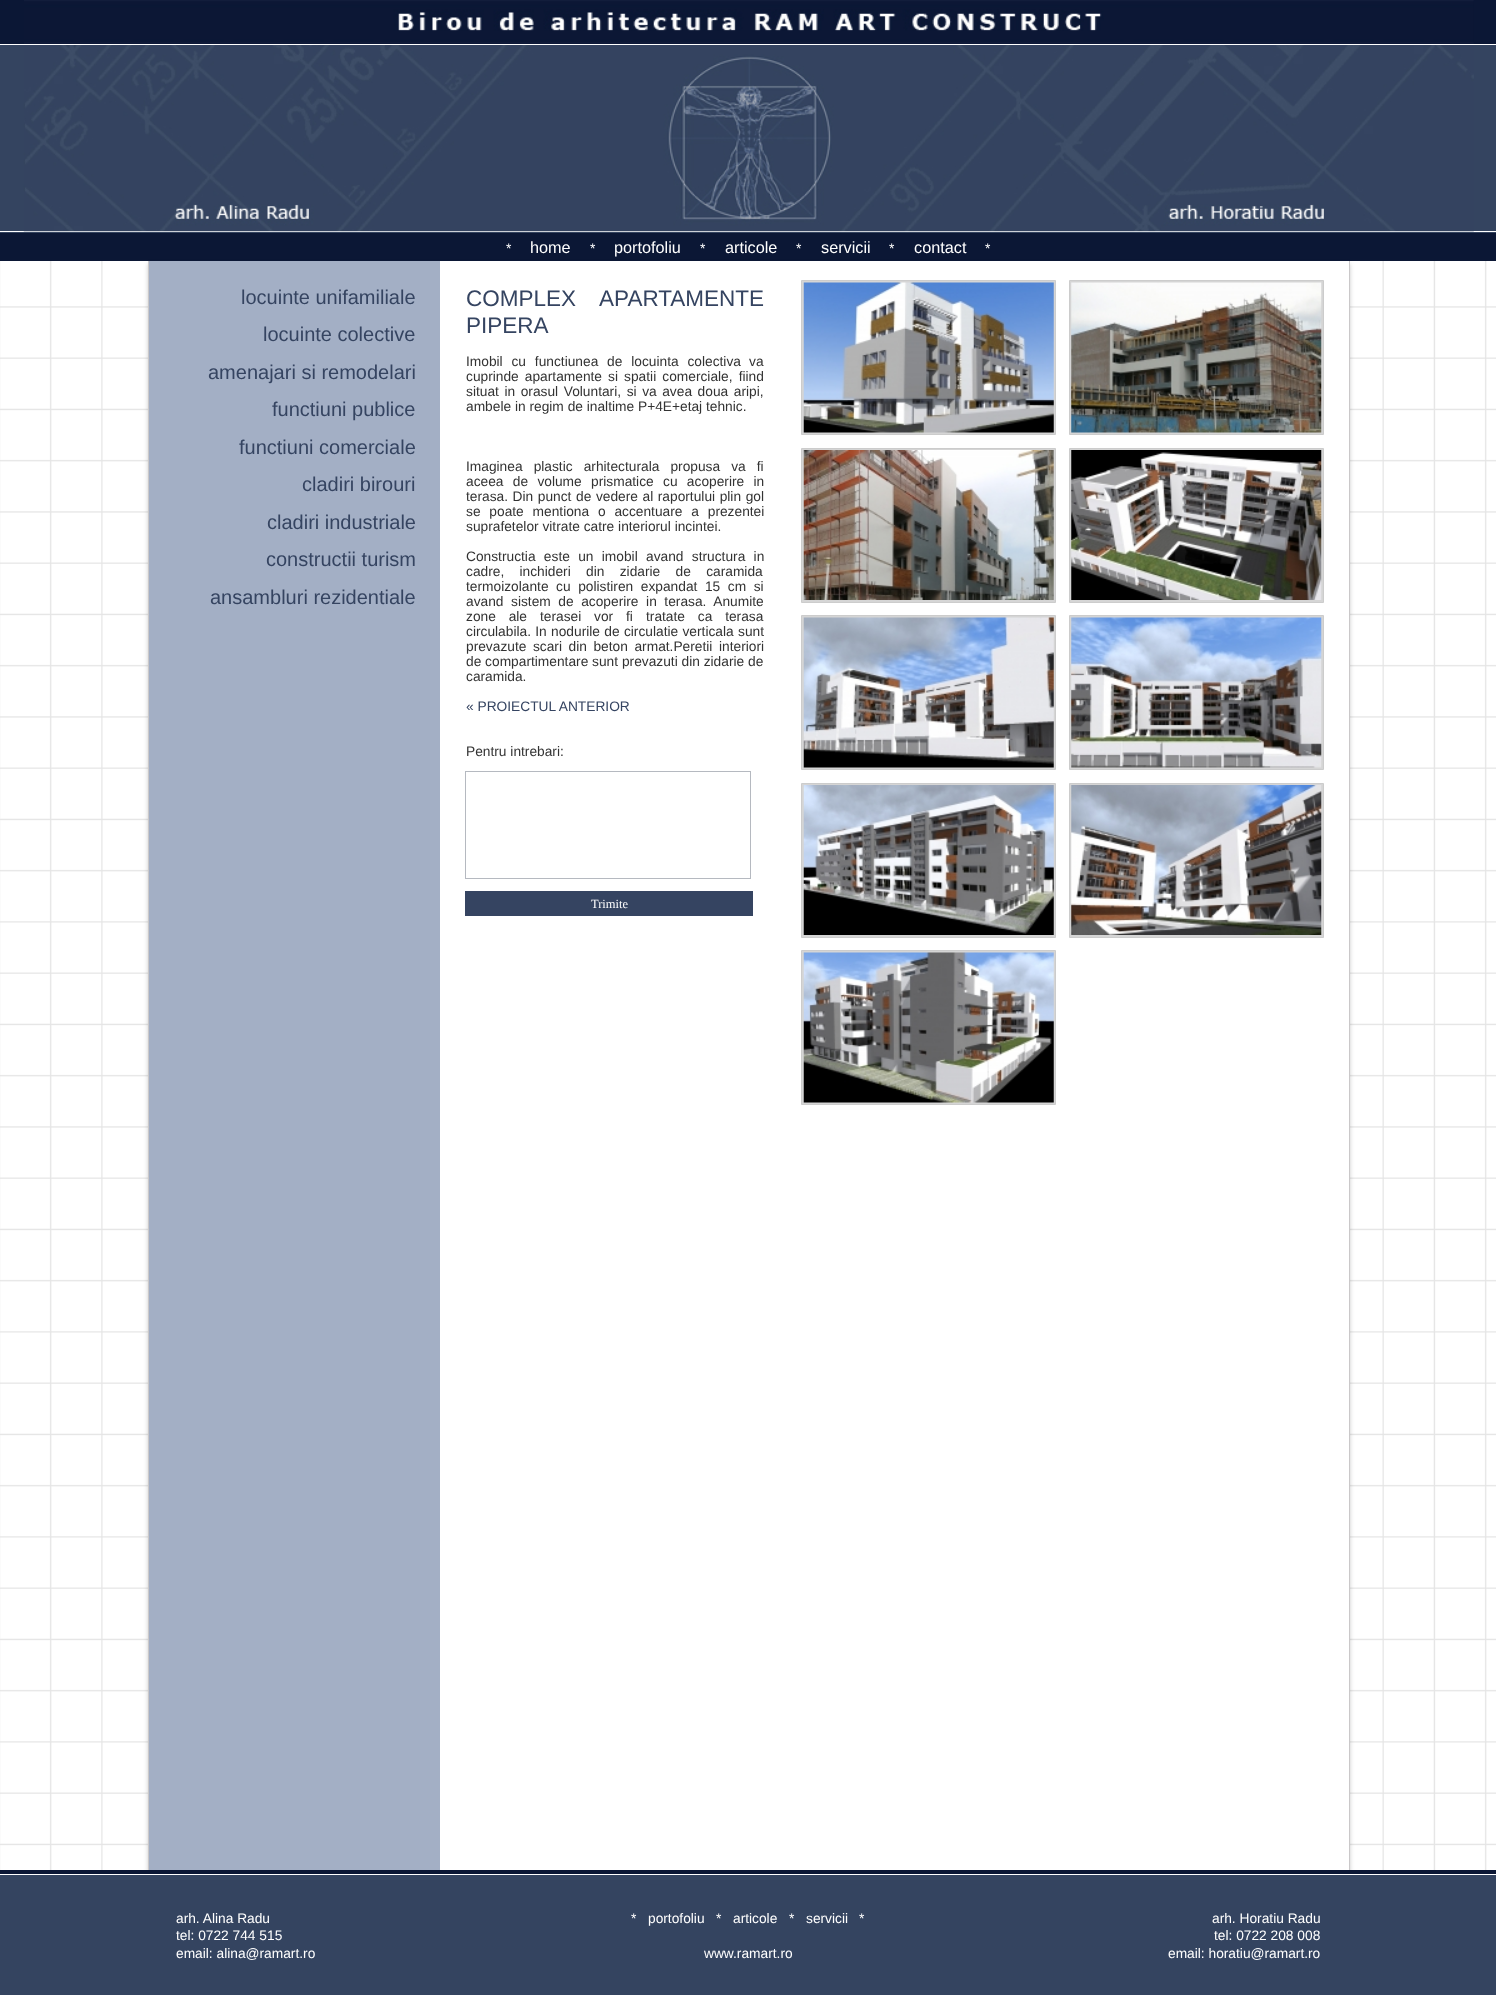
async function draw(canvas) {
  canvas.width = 1496
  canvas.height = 1995
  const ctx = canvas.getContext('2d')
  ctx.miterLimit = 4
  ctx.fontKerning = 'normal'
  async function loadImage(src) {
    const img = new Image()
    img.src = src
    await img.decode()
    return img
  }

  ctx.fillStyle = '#fff'
  ctx.fillRect(0, 0, 1496, 1995)
  ctx.drawImage(await loadImage('image0.png'), 0, 261, 1496, 1609)
  ctx.fillStyle = '#0b1735'
  ctx.fillRect(0, 0, 1496, 44)
  ctx.drawImage(await loadImage('image1.png'), 24, 0, 1450, 44)
  ctx.fillStyle = '#344460'
  ctx.fillRect(0, 45, 1496, 188)
  ctx.fillStyle = '#fff'
  ctx.fillRect(0, 231, 1496, 1)
  ctx.drawImage(await loadImage('image2.png'), 23, 45, 1451, 187)
  ctx.fillStyle = '#0b1735'
  ctx.fillRect(0, 233, 1496, 28)
  ctx.font = '13.75px Liberation Sans'
  ctx.fillStyle = '#fff'
  ctx.fillText('*', 506, 253)
  ctx.font = '16.25px Liberation Sans'
  ctx.fillText('home', 530, 253)
  ctx.font = '13.75px Liberation Sans'
  ctx.fillText('*', 590, 253)
  ctx.font = '16.25px Liberation Sans'
  ctx.fillText('portofoliu', 614, 253)
  ctx.font = '13.75px Liberation Sans'
  ctx.fillText('*', 700, 253)
  ctx.font = '16.25px Liberation Sans'
  ctx.fillText('articole', 725, 253)
  ctx.font = '13.75px Liberation Sans'
  ctx.fillText('*', 796, 253)
  ctx.font = '16.25px Liberation Sans'
  ctx.fillText('servicii', 821, 253)
  ctx.font = '13.75px Liberation Sans'
  ctx.fillText('*', 889, 253)
  ctx.font = '16.25px Liberation Sans'
  ctx.fillText('contact', 914, 253)
  ctx.font = '13.75px Liberation Sans'
  ctx.fillText('*', 985, 253)
  ctx.fillStyle = '#5050504d'
  ctx.filter = 'blur(2px)'
  ctx.beginPath()
  ctx.rect(148, 264, 1202, 1609)
  ctx.fill()
  ctx.filter = 'none'
  ctx.fillStyle = '#fff'
  ctx.fillRect(440, 261, 909, 1609)
  ctx.fillStyle = '#cac8c9'
  ctx.fillRect(1349, 261, 1, 1609)
  ctx.fillRect(148, 261, 1, 1609)
  ctx.fillStyle = '#a3afc5'
  ctx.fillRect(149, 261, 291, 1609)
  ctx.font = '20px Liberation Sans'
  ctx.fillStyle = '#354461'
  ctx.fillText('locuinte unifamiliale', 241, 304)
  ctx.fillText('locuinte colective', 263, 341)
  ctx.fillText('amenajari si remodelari', 208, 379)
  ctx.fillText('functiuni publice', 272, 416)
  ctx.fillText('functiuni comerciale', 239, 454)
  ctx.fillText('cladiri birouri', 302, 491)
  ctx.fillText('cladiri industriale', 267, 529)
  ctx.fillText('constructii turism', 266, 566)
  ctx.fillText('ansambluri rezidentiale', 210, 604)
  ctx.wordSpacing = '18px'
  ctx.font = '22.5px Liberation Sans'
  ctx.fillText('COMPLEX APARTAMENTE', 466, 306)
  ctx.wordSpacing = '0px'
  ctx.fillText('PIPERA', 466, 333)
  ctx.wordSpacing = '5px'
  ctx.font = '13.75px Liberation Sans'
  ctx.fillStyle = '#333'
  ctx.fillText('Imobil cu functiunea de locuinta colectiva', 466, 366)
  ctx.wordSpacing = '0px'
  ctx.fillText('va', 749, 366)
  ctx.wordSpacing = '2.25px'
  ctx.fillText('cuprinde apartamente si spatii comerciale, fiind', 466, 381)
  ctx.wordSpacing = '1.75px'
  ctx.fillText('situat in orasul Voluntari, si va avea doua aripi,', 466, 396)
  ctx.wordSpacing = '0px'
  ctx.fillText('ambele in regim de inaltime P+4E+etaj tehnic.', 466, 411)
  ctx.wordSpacing = '7.25px'
  ctx.fillText('Imaginea plastic arhitecturala propusa va fi', 466, 471)
  ctx.wordSpacing = '5.5px'
  ctx.fillText('aceea de volume prismatice cu acoperire in', 466, 486)
  ctx.wordSpacing = '0.75px'
  ctx.fillText('terasa. Din punct de vedere al raportului plin gol', 466, 501)
  ctx.wordSpacing = '5px'
  ctx.fillText('se poate mentiona o accentuare a prezentei', 466, 516)
  ctx.wordSpacing = '0px'
  ctx.fillText('suprafetelor vitrate catre interiorul incintei.', 466, 531)
  ctx.wordSpacing = '4.5px'
  ctx.fillText('Constructia este un imobil avand structura in', 466, 561)
  ctx.wordSpacing = '11.5px'
  ctx.fillText('cadre, inchideri din zidarie de caramida', 466, 576)
  ctx.wordSpacing = '3.75px'
  ctx.fillText('termoizolante cu polistiren expandat 15 cm si', 466, 591)
  ctx.fillText('avand sistem de acoperire in terasa. Anumite', 466, 606)
  ctx.wordSpacing = '9px'
  ctx.fillText('zone ale', 466, 621)
  ctx.fillText('terasei vor fi', 540, 621)
  ctx.fillText('tratate ca terasa', 646, 621)
  ctx.wordSpacing = '0.5px'
  ctx.fillText('circulabila. In nodurile de circulatie verticala sunt', 466, 636)
  ctx.wordSpacing = '2.75px'
  ctx.fillText('prevazute scari din beton armat.Peretii interiori', 466, 651)
  ctx.wordSpacing = '0px'
  ctx.fillText('de compartimentare sunt prevazuti din zidarie de', 466, 666)
  ctx.fillText('caramida.', 466, 681)
  ctx.fillStyle = '#354461'
  ctx.fillText('« PROIECTUL ANTERIOR', 466, 711)
  ctx.fillStyle = '#333'
  ctx.fillText('Pentru intrebari:', 466, 756)
  ctx.strokeStyle = '#b5b9c0'
  ctx.strokeRect(465.5, 771.5, 285, 107)
  ctx.fillStyle = '#354461'
  ctx.fillRect(465, 891, 288, 25)
  ctx.font = '12.5px Liberation Serif'
  ctx.fillStyle = '#fff'
  ctx.fillText('Trimite', 591, 908)
  ctx.fillStyle = '#d5d5d5'
  ctx.beginPath()
  ctx.rect(801.5, 280.5, 254, 154)
  ctx.fill()
  ctx.strokeStyle = '#ccc'
  ctx.stroke()
  ctx.drawImage(await loadImage('image3.png'), 803, 282, 251, 151)
  ctx.beginPath()
  ctx.rect(1069.5, 280.5, 254, 154)
  ctx.fill()
  ctx.stroke()
  ctx.drawImage(await loadImage('image4.png'), 1071, 282, 251, 151)
  ctx.beginPath()
  ctx.rect(801.5, 448.5, 254, 154)
  ctx.fill()
  ctx.stroke()
  ctx.drawImage(await loadImage('image5.png'), 803, 450, 251, 150)
  ctx.beginPath()
  ctx.rect(1069.5, 448.5, 254, 154)
  ctx.fill()
  ctx.stroke()
  ctx.drawImage(await loadImage('image6.png'), 1071, 450, 251, 150)
  ctx.beginPath()
  ctx.rect(801.5, 615.5, 254, 154)
  ctx.fill()
  ctx.stroke()
  ctx.drawImage(await loadImage('image7.png'), 803, 617, 251, 151)
  ctx.beginPath()
  ctx.rect(1069.5, 615.5, 254, 154)
  ctx.fill()
  ctx.stroke()
  ctx.drawImage(await loadImage('image8.png'), 1071, 617, 251, 151)
  ctx.beginPath()
  ctx.rect(801.5, 783.5, 254, 154)
  ctx.fill()
  ctx.stroke()
  ctx.drawImage(await loadImage('image9.png'), 803, 785, 251, 150)
  ctx.beginPath()
  ctx.rect(1069.5, 783.5, 254, 154)
  ctx.fill()
  ctx.stroke()
  ctx.drawImage(await loadImage('image10.png'), 1071, 785, 251, 150)
  ctx.beginPath()
  ctx.rect(801.5, 950.5, 254, 154)
  ctx.fill()
  ctx.stroke()
  ctx.drawImage(await loadImage('image11.png'), 803, 952, 251, 151)
  ctx.fillStyle = '#0b1735'
  ctx.fillRect(0, 1870, 1496, 4)
  ctx.fillStyle = '#344460'
  ctx.fillRect(0, 1875, 1496, 120)
  ctx.fillStyle = '#fff'
  ctx.fillRect(146, 1874, 1206, 1)
  ctx.font = '13.75px Liberation Sans'
  ctx.fillText('arh. Alina Radu', 176, 1923)
  ctx.fillText('*', 631, 1923)
  ctx.fillText('portofoliu', 648, 1923)
  ctx.fillText('*', 716, 1923)
  ctx.fillText('articole', 733, 1923)
  ctx.fillText('*', 789, 1923)
  ctx.fillText('servicii', 806, 1923)
  ctx.fillText('*', 859, 1923)
  ctx.fillText('arh. Horatiu Radu', 1212, 1923)
  ctx.fillText('tel: 0722 744 515', 176, 1940)
  ctx.fillText('tel: 0722 208 008', 1214, 1940)
  ctx.fillText('email: alina@ramart.ro', 176, 1958)
  ctx.fillText('www.ramart.ro', 704, 1958)
  ctx.fillText('email: horatiu@ramart.ro', 1168, 1958)
}

draw(document.querySelector('canvas'))
